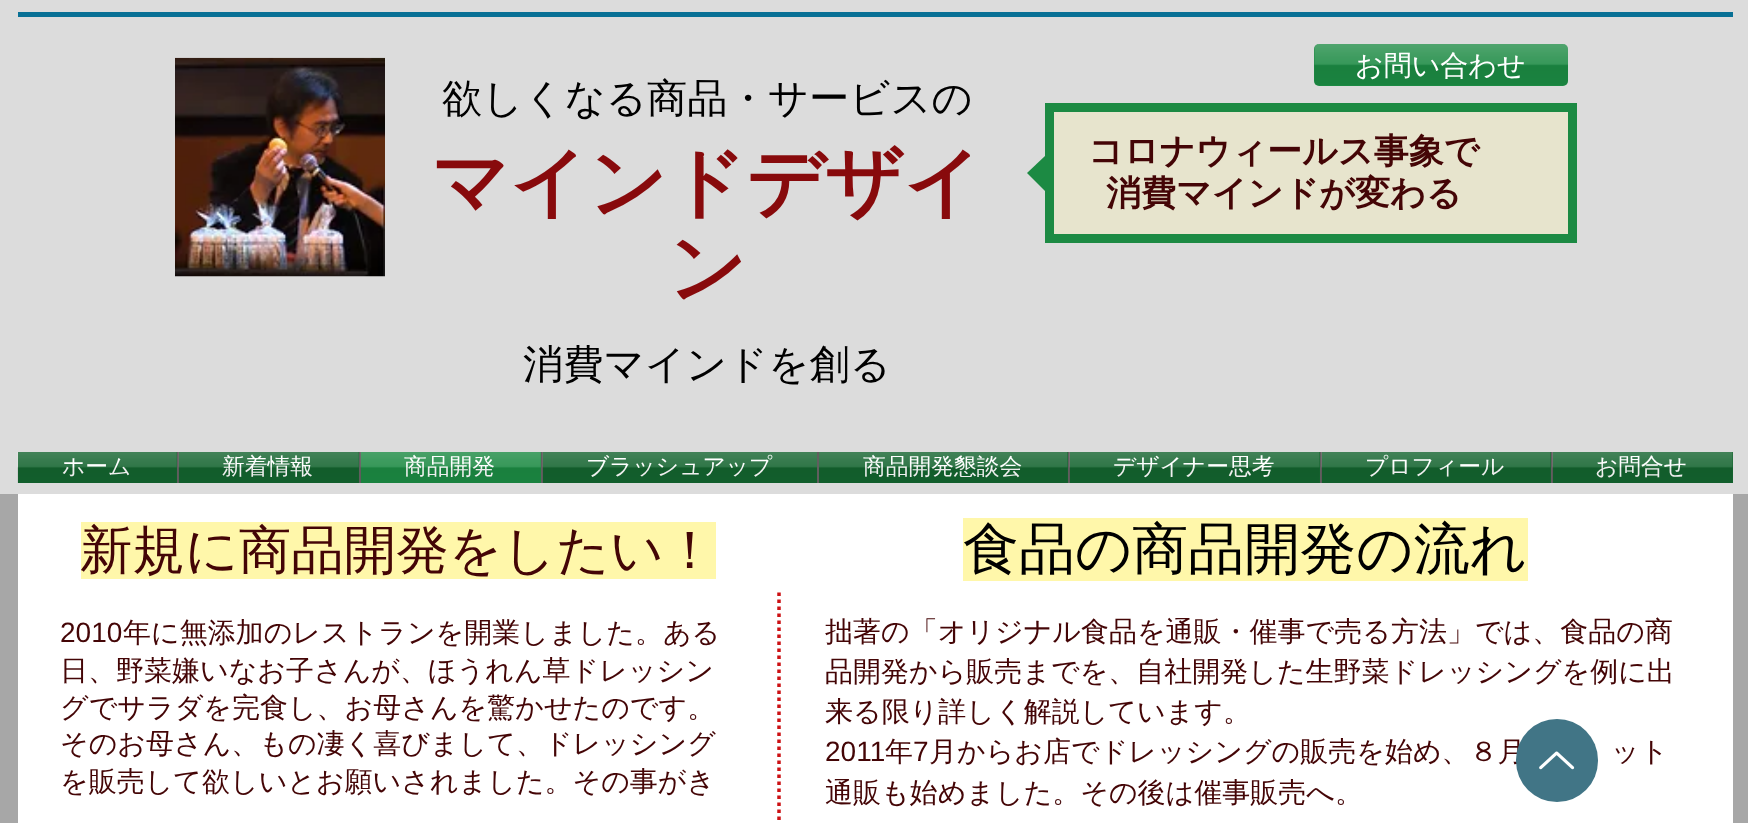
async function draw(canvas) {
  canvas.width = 1748
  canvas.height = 823
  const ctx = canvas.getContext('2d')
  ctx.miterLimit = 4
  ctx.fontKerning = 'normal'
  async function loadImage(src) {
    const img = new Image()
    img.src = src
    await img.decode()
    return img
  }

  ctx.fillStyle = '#a7a7a7'
  ctx.fillRect(0, 0, 1748, 823)
  ctx.fillStyle = '#dcdcdc'
  ctx.fillRect(0, 0, 1748, 494)
  ctx.fillStyle = '#087095'
  ctx.fillRect(18, 12, 1715, 5)
  ctx.drawImage(await loadImage('image0.png'), 175, 57, 210, 220)
  ctx.font = '500 40.25px WenQuanYi Zen Hei'
  ctx.fillStyle = '#000'
  ctx.fillText('欲しくなる商品・サービスの', 442, 112)
  ctx.font = 'bold 77px WenQuanYi Zen Hei'
  ctx.fillStyle = '#880a0c'
  ctx.fillText('マインドデザイ', 431, 209)
  ctx.fillText('ン', 668, 294)
  ctx.font = '500 40.25px WenQuanYi Zen Hei'
  ctx.fillStyle = '#000'
  ctx.fillText('消費マインドを創る', 523, 378)
  ctx.fillStyle = '#1c8a43'
  ctx.beginPath()
  ctx.roundRect(1314, 44, 254, 42, 5)
  ctx.fill()
  ctx.drawImage(await loadImage('image1.png'), 1314, 44, 254, 41)
  ctx.font = '500 28px WenQuanYi Zen Hei'
  ctx.fillStyle = '#fff'
  ctx.fillText('お問い合わせ', 1355, 75)
  ctx.fillStyle = '#1c8a43'
  ctx.beginPath()
  ctx.moveTo(1045, 156)
  ctx.lineTo(1045, 191)
  ctx.lineTo(1027, 173)
  ctx.closePath()
  ctx.fill()
  ctx.fillStyle = '#e7e4cd'
  ctx.beginPath()
  ctx.rect(1049.5, 107.5, 523, 131)
  ctx.fill()
  ctx.strokeStyle = '#1c8a43'
  ctx.lineWidth = 9
  ctx.stroke()
  ctx.font = 'bold 35px WenQuanYi Zen Hei'
  ctx.fillStyle = '#440506'
  ctx.fillText('コロナウィールス事象で', 1088, 163)
  ctx.fillText('消費マインドが変わる', 1106, 205)
  ctx.drawImage(await loadImage('image2.png'), 17, 452, 1, 31)
  ctx.fillStyle = '#14642f'
  ctx.fillRect(18, 452, 159, 31)
  ctx.font = '500 22.75px WenQuanYi Zen Hei'
  ctx.fillStyle = '#fff'
  ctx.fillText('ホーム', 62, 474)
  ctx.drawImage(await loadImage('image3.png'), 17, 452, 160, 31)
  ctx.fillStyle = '#14642f'
  ctx.fillRect(179, 452, 180, 31)
  ctx.fillStyle = '#605e5e'
  ctx.fillRect(177, 452, 2, 31)
  ctx.fillStyle = '#fff'
  ctx.fillText('新着情報', 222, 474)
  ctx.drawImage(await loadImage('image4.png'), 178, 452, 181, 31)
  ctx.fillStyle = '#1c8a43'
  ctx.fillRect(361, 452, 180, 31)
  ctx.fillStyle = '#605e5e'
  ctx.fillRect(359, 452, 2, 31)
  ctx.fillStyle = '#fff'
  ctx.fillText('商品開発', 404, 474)
  ctx.drawImage(await loadImage('image5.png'), 360, 452, 181, 31)
  ctx.fillStyle = '#14642f'
  ctx.fillRect(543, 452, 274, 31)
  ctx.fillStyle = '#605e5e'
  ctx.fillRect(541, 452, 2, 31)
  ctx.fillStyle = '#fff'
  ctx.fillText('ブラッシュアップ', 586, 474)
  ctx.drawImage(await loadImage('image6.png'), 542, 452, 275, 31)
  ctx.fillStyle = '#14642f'
  ctx.fillRect(819, 452, 249, 31)
  ctx.fillStyle = '#605e5e'
  ctx.fillRect(817, 452, 2, 31)
  ctx.fillStyle = '#fff'
  ctx.fillText('商品開発懇談会', 863, 474)
  ctx.drawImage(await loadImage('image7.png'), 819, 452, 249, 31)
  ctx.fillStyle = '#14642f'
  ctx.fillRect(1070, 452, 250, 31)
  ctx.fillStyle = '#605e5e'
  ctx.fillRect(1068, 452, 2, 31)
  ctx.fillStyle = '#fff'
  ctx.fillText('デザイナー思考', 1113, 474)
  ctx.drawImage(await loadImage('image8.png'), 1069, 452, 251, 31)
  ctx.fillStyle = '#14642f'
  ctx.fillRect(1322, 452, 229, 31)
  ctx.fillStyle = '#605e5e'
  ctx.fillRect(1320, 452, 2, 31)
  ctx.fillStyle = '#fff'
  ctx.fillText('プロフィール', 1365, 474)
  ctx.drawImage(await loadImage('image9.png'), 1321, 452, 230, 31)
  ctx.fillStyle = '#14642f'
  ctx.fillRect(1553, 452, 180, 31)
  ctx.fillStyle = '#605e5e'
  ctx.fillRect(1551, 452, 2, 31)
  ctx.fillStyle = '#fff'
  ctx.fillText('お問合せ', 1595, 474)
  ctx.drawImage(await loadImage('image10.png'), 1552, 452, 181, 31)
  ctx.fillRect(18, 494, 1715, 329)
  ctx.fillStyle = '#fff7aa'
  ctx.fillRect(81, 522, 635, 57)
  ctx.font = '500 52.5px WenQuanYi Zen Hei'
  ctx.fillStyle = '#440506'
  ctx.fillText('新規に商品開発をしたい！', 80, 568)
  ctx.fillStyle = '#fff7aa'
  ctx.fillRect(963, 518, 565, 63)
  ctx.font = '500 56px WenQuanYi Zen Hei'
  ctx.fillStyle = '#000'
  ctx.fillText('食品の商品開発の流れ', 963, 568)
  ctx.font = '28px Liberation Sans'
  ctx.fillStyle = '#440506'
  ctx.fillText('2010', 60, 642)
  ctx.font = '500 28px WenQuanYi Zen Hei'
  ctx.fillText('年に無添加のレストランを開業しました。ある', 123, 642)
  ctx.fillText('日、野菜嫌いなお子さんが、ほうれん草ドレッシン', 60, 680)
  ctx.fillText('グでサラダを完食し、お母さんを驚かせたのです。', 60, 717)
  ctx.fillText('そのお母さん、もの凄く喜びまして、ドレッシング', 60, 753)
  ctx.fillText('を販売して欲しいとお願いされました。その事がき', 60, 791)
  ctx.beginPath()
  ctx.moveTo(779, 592.5)
  ctx.lineTo(779, 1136.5)
  ctx.strokeStyle = '#cc1013'
  ctx.lineWidth = 3.5
  ctx.setLineDash([3.5, 3.5])
  ctx.stroke()
  ctx.fillText('拙著の「オリジナル食品を通販・催事で売る方法」では、食品の商', 825, 641)
  ctx.fillText('品開発から販売までを、自社開発した生野菜ドレッシングを例に出', 825, 681)
  ctx.fillText('来る限り詳しく解説しています。', 825, 721)
  ctx.font = '28px Liberation Sans'
  ctx.fillText('2011', 825, 761)
  ctx.font = '500 28px WenQuanYi Zen Hei'
  ctx.fillText('年', 885, 761)
  ctx.font = '28px Liberation Sans'
  ctx.fillText('7', 913, 761)
  ctx.font = '500 28px WenQuanYi Zen Hei'
  ctx.fillText('月からお店でドレッシングの販売を始め、８月', 929, 761)
  ctx.fillText('ット', 1611, 761)
  ctx.fillText('通販も始めました。その後は催事販売へ。', 825, 802)
  ctx.fillStyle = '#417586'
  ctx.beginPath()
  ctx.roundRect(1516, 719, 82, 83, 41)
  ctx.fill()
  ctx.drawImage(await loadImage('image11.png'), 1539, 751, 36, 19)
}

draw(document.querySelector('canvas'))
